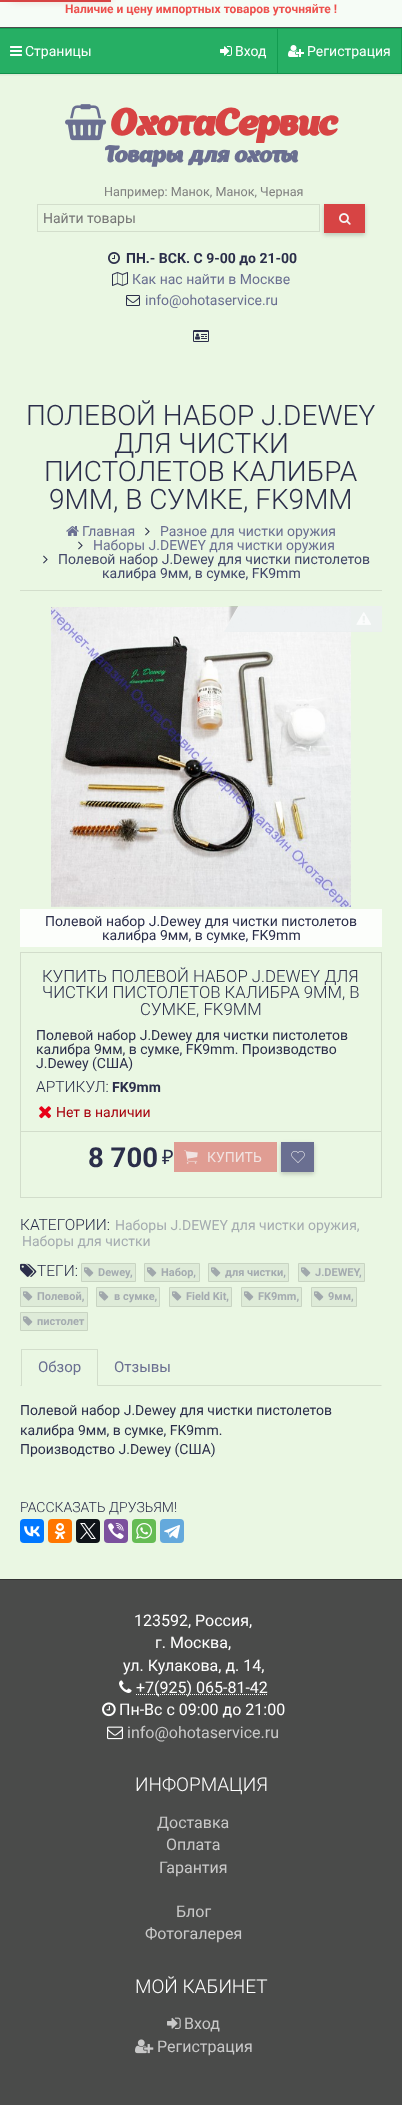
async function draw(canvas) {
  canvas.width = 402
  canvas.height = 2105
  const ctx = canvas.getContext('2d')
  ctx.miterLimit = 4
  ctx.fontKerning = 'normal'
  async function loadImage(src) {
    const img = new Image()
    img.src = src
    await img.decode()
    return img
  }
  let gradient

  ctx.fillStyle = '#f6fcf6'
  ctx.fillRect(0, 0, 402, 2105)
  ctx.fillStyle = '#d74444'
  ctx.fillRect(0, 0, 111, 2)
  ctx.filter = 'blur(5px)'
  ctx.beginPath()
  ctx.rect(11, -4, 100, 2)
  ctx.fill()
  ctx.filter = 'none'
  ctx.fillStyle = '#4c4c4c'
  ctx.fillRect(0, 27, 402, 1)
  ctx.font = 'bold 12px Roboto'
  ctx.fillStyle = '#ed504d'
  ctx.fillText('Наличие и цену импортных товаров уточняйте !', 65, 13)
  ctx.fillStyle = '#eaf7e3'
  ctx.fillRect(0, 74, 402, 1505)
  ctx.fillStyle = '#26af64'
  ctx.fillRect(0, 29, 401, 44)
  ctx.fillStyle = '#129b50'
  ctx.fillRect(0, 28, 402, 1)
  ctx.fillRect(0, 73, 402, 1)
  ctx.drawImage(await loadImage('image0.png'), 10, 46, 12, 10)
  ctx.font = '14px Roboto'
  ctx.fillStyle = '#fff'
  ctx.fillText('Страницы', 25, 56)
  ctx.fillStyle = '#129b50'
  ctx.fillRect(277, 29, 1, 44)
  ctx.drawImage(await loadImage('image1.png'), 220, 46, 12, 10)
  ctx.fillStyle = '#fff'
  ctx.fillText('Вход', 235, 56)
  ctx.fillStyle = '#129b50'
  ctx.fillRect(401, 29, 1, 44)
  ctx.drawImage(await loadImage('image2.png'), 288, 45, 16, 12)
  ctx.fillStyle = '#fff'
  ctx.fillText('Регистрация', 307, 56)
  gradient = ctx.createLinearGradient(201, 73, 201, 77)
  gradient.addColorStop(0, '#00000014')
  gradient.addColorStop(1, '#00000000')
  ctx.fillStyle = gradient
  ctx.fillRect(0, 73, 402, 3)
  ctx.drawImage(await loadImage('image3.png'), 65, 104, 42, 37)
  ctx.font = 'italic bold 36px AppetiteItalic'
  ctx.fillStyle = '#d74444'
  ctx.fillText('ОхотаСервис', 111, 135)
  ctx.font = 'italic bold 22px AppetiteItalic'
  ctx.fillStyle = '#6a6f91'
  ctx.fillText('Товары для охоты', 104, 162)
  ctx.font = '12.6px Roboto'
  ctx.fillStyle = '#7f7f7f'
  ctx.fillText('Например: Манок, Манок, Черная', 104, 196)
  ctx.strokeStyle = '#d3decc'
  ctx.strokeRect(37.5, 204.5, 282, 27)
  ctx.font = '14px Roboto'
  ctx.fillStyle = '#757575'
  ctx.fillText('Найти товары', 43, 223)
  ctx.fillStyle = '#00000033'
  ctx.filter = 'blur(2px)'
  ctx.beginPath()
  ctx.rect(324, 206, 41, 29)
  ctx.fill()
  ctx.filter = 'none'
  ctx.fillStyle = '#d74444'
  ctx.fillRect(324, 204, 41, 29)
  ctx.drawImage(await loadImage('image4.png'), 339, 213, 12, 12)
  ctx.drawImage(await loadImage('image5.png'), 108, 252, 12, 12)
  ctx.font = 'bold 14px Roboto'
  ctx.fillStyle = '#2b2e4a'
  ctx.fillText('ПН.- ВСК. C 9-00 до 21-00', 126, 263)
  ctx.drawImage(await loadImage('image6.png'), 112, 272, 16, 14)
  ctx.font = '14px Roboto'
  ctx.fillStyle = '#6a6f91'
  ctx.fillText('Как нас найти в Москве', 132, 284)
  ctx.drawImage(await loadImage('image7.png'), 126, 295, 14, 11)
  ctx.fillText('info@ohotaservice.ru', 145, 305)
  ctx.drawImage(await loadImage('image8.png'), 193, 330, 16, 12)
  ctx.font = '300 28px Roboto'
  ctx.fillStyle = '#2b2e4a'
  ctx.fillText('ПОЛЕВОЙ НАБОР J.DEWEY', 26, 425)
  ctx.fillText('ДЛЯ ЧИСТКИ', 114, 453)
  ctx.fillText('ПИСТОЛЕТОВ КАЛИБРА', 44, 481)
  ctx.fillText('9ММ, В СУМКЕ, FK9MM', 49, 509)
  ctx.fillStyle = '#d3decc'
  ctx.fillRect(20, 590, 362, 1)
  ctx.drawImage(await loadImage('image9.png'), 66, 526, 13, 10)
  ctx.font = '14px Roboto'
  ctx.fillStyle = '#6a6f91'
  ctx.fillText('Главная', 82, 536)
  ctx.drawImage(await loadImage('image10.png'), 145, 527, 5, 9)
  ctx.fillText('Разное для чистки оружия', 160, 536)
  ctx.drawImage(await loadImage('image10.png'), 78, 541, 5, 9)
  ctx.fillText('Наборы J.DEWEY для чистки оружия', 93, 550)
  ctx.drawImage(await loadImage('image10.png'), 43, 555, 5, 9)
  ctx.fillStyle = '#424769'
  ctx.fillText('Полевой набор J.Dewey для чистки пистолетов', 58, 564)
  ctx.fillText('калибра 9мм, в сумке, FK9mm', 102, 578)
  ctx.drawImage(await loadImage('image12.png'), 51, 607, 300, 300)
  ctx.save()
  ctx.beginPath()
  ctx.rect(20, 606, 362, 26)
  ctx.clip()
  ctx.beginPath()
  ctx.moveTo(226, 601)
  ctx.lineTo(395, 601)
  ctx.lineTo(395, 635)
  ctx.lineTo(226, 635)
  ctx.closePath()
  ctx.moveTo(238.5, 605.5)
  ctx.lineTo(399.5, 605.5)
  ctx.lineTo(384.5, 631.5)
  ctx.lineTo(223.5, 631.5)
  ctx.closePath()
  ctx.clip('evenodd')
  ctx.fillStyle = '#00000033'
  ctx.filter = 'blur(1px)'
  ctx.beginPath()
  ctx.rect(230, 605, 161, 26)
  ctx.fill()
  ctx.filter = 'none'
  ctx.restore()
  ctx.save()
  ctx.beginPath()
  ctx.rect(20, 606, 362, 26)
  ctx.clip()
  ctx.fillStyle = '#ecf0f1d9'
  ctx.beginPath()
  ctx.moveTo(239, 606)
  ctx.lineTo(400, 606)
  ctx.lineTo(384, 632)
  ctx.lineTo(224, 632)
  ctx.closePath()
  ctx.fill()
  ctx.restore()
  ctx.drawImage(await loadImage('image11.png'), 356, 612, 15, 13)
  ctx.fillStyle = '#fcfefb'
  ctx.fillRect(20, 909, 362, 38)
  ctx.fillStyle = '#2b2e4a'
  ctx.fillText('Полевой набор J.Dewey для чистки пистолетов', 45, 926)
  ctx.fillText('калибра 9мм, в сумке, FK9mm', 102, 940)
  ctx.strokeStyle = '#d2ddcb'
  ctx.strokeRect(20.5, 952.5, 361, 245)
  ctx.font = '300 16.75px Roboto'
  ctx.fillText('КУПИТЬ ПОЛЕВОЙ НАБОР J.DEWEY ДЛЯ', 42, 982)
  ctx.fillText('ЧИСТКИ ПИСТОЛЕТОВ КАЛИБРА 9ММ, В', 42, 998)
  ctx.fillText('СУМКЕ, FK9MM', 140, 1015)
  ctx.font = '14px Roboto'
  ctx.fillText('Полевой набор J.Dewey для чистки пистолетов', 36, 1040)
  ctx.fillText('калибра 9мм, в сумке, FK9mm. Производство', 36, 1054)
  ctx.fillText('J.Dewey (США)', 36, 1068)
  ctx.font = '300 15.5px Roboto'
  ctx.fillText('АРТИКУЛ:', 36, 1092)
  ctx.font = 'bold 14px Roboto'
  ctx.fillText('FK9mm', 112, 1092)
  ctx.drawImage(await loadImage('image13.png'), 39, 1106, 12, 13)
  ctx.font = '14px Roboto'
  ctx.fillStyle = '#a7000d'
  ctx.fillText('Нет в наличии', 56, 1117)
  ctx.fillStyle = '#d2ddcb'
  ctx.fillRect(21, 1131, 360, 1)
  ctx.font = 'bold 27.5px Roboto'
  ctx.fillStyle = '#2b2e4a'
  ctx.fillText('8 700', 88, 1167)
  ctx.font = '20px Noto Sans'
  ctx.fillText('₽', 162, 1164)
  ctx.fillStyle = '#e09d93'
  ctx.fillRect(174, 1142, 103, 30)
  ctx.drawImage(await loadImage('image14.png'), 184, 1150, 14, 14)
  ctx.font = '14px Roboto'
  ctx.fillStyle = '#f1e3e1'
  ctx.fillText('КУПИТЬ', 207, 1162)
  ctx.fillStyle = '#00000033'
  ctx.filter = 'blur(2px)'
  ctx.beginPath()
  ctx.rect(281, 1144, 33, 30)
  ctx.fill()
  ctx.filter = 'none'
  ctx.fillStyle = '#6a6f91'
  ctx.fillRect(281, 1142, 33, 30)
  ctx.drawImage(await loadImage('image15.png'), 291, 1150, 14, 13)
  ctx.font = '300 15.5px Roboto'
  ctx.fillStyle = '#2b2e4a'
  ctx.fillText('КАТЕГОРИИ:', 20, 1230)
  ctx.font = '14px Roboto'
  ctx.fillStyle = '#a4abb0'
  ctx.fillText('Наборы J.DEWEY для чистки оружия,', 115, 1230)
  ctx.fillText('Наборы для чистки', 22, 1246)
  ctx.drawImage(await loadImage('image16.png'), 20, 1263, 17, 14)
  ctx.font = '300 15.5px Roboto'
  ctx.fillStyle = '#2b2e4a'
  ctx.fillText('ТЕГИ:', 37, 1276)
  ctx.fillStyle = '#deebd8'
  ctx.beginPath()
  ctx.rect(81.5, 1263.5, 54, 18)
  ctx.fill()
  ctx.strokeStyle = '#c8d4c2'
  ctx.stroke()
  ctx.drawImage(await loadImage('image17.png'), 84, 1267, 10, 10)
  ctx.font = 'bold 11px Roboto'
  ctx.fillStyle = '#a4abb0'
  ctx.fillText('Dewey', 98, 1276)
  ctx.fillText(',', 130, 1276)
  ctx.fillStyle = '#deebd8'
  ctx.beginPath()
  ctx.rect(144.5, 1263.5, 55, 18)
  ctx.fill()
  ctx.stroke()
  ctx.drawImage(await loadImage('image17.png'), 147, 1267, 10, 10)
  ctx.fillStyle = '#a4abb0'
  ctx.fillText('Набор,', 161, 1276)
  ctx.fillStyle = '#deebd8'
  ctx.beginPath()
  ctx.rect(208.5, 1263.5, 80, 18)
  ctx.fill()
  ctx.stroke()
  ctx.drawImage(await loadImage('image17.png'), 211, 1267, 10, 10)
  ctx.fillStyle = '#a4abb0'
  ctx.fillText('для чистки,', 225, 1276)
  ctx.fillStyle = '#deebd8'
  ctx.beginPath()
  ctx.rect(298.5, 1263.5, 66, 18)
  ctx.fill()
  ctx.stroke()
  ctx.drawImage(await loadImage('image17.png'), 301, 1267, 10, 10)
  ctx.fillStyle = '#a4abb0'
  ctx.fillText('J.DEWEY', 315, 1276)
  ctx.fillText(',', 359, 1276)
  ctx.fillStyle = '#deebd8'
  ctx.beginPath()
  ctx.rect(20.5, 1287.5, 67, 19)
  ctx.fill()
  ctx.stroke()
  ctx.drawImage(await loadImage('image17.png'), 23, 1291, 10, 10)
  ctx.fillStyle = '#a4abb0'
  ctx.fillText('Полевой,', 37, 1300)
  ctx.fillStyle = '#deebd8'
  ctx.beginPath()
  ctx.rect(96.5, 1287.5, 63, 19)
  ctx.fill()
  ctx.stroke()
  ctx.drawImage(await loadImage('image17.png'), 99, 1291, 10, 10)
  ctx.fillStyle = '#a4abb0'
  ctx.fillText('в сумке,', 114, 1300)
  ctx.fillStyle = '#deebd8'
  ctx.beginPath()
  ctx.rect(169.5, 1287.5, 62, 19)
  ctx.fill()
  ctx.stroke()
  ctx.drawImage(await loadImage('image17.png'), 172, 1291, 10, 10)
  ctx.fillStyle = '#a4abb0'
  ctx.fillText('Field Kit,', 186, 1300)
  ctx.fillStyle = '#deebd8'
  ctx.beginPath()
  ctx.rect(241.5, 1287.5, 60, 19)
  ctx.fill()
  ctx.stroke()
  ctx.drawImage(await loadImage('image17.png'), 244, 1291, 10, 10)
  ctx.fillStyle = '#a4abb0'
  ctx.fillText('FK9mm,', 258, 1300)
  ctx.fillStyle = '#deebd8'
  ctx.beginPath()
  ctx.rect(311.5, 1287.5, 45, 19)
  ctx.fill()
  ctx.stroke()
  ctx.drawImage(await loadImage('image17.png'), 314, 1291, 10, 10)
  ctx.fillStyle = '#a4abb0'
  ctx.fillText('9мм,', 328, 1300)
  ctx.fillStyle = '#deebd8'
  ctx.beginPath()
  ctx.rect(20.5, 1312.5, 67, 18)
  ctx.fill()
  ctx.stroke()
  ctx.drawImage(await loadImage('image17.png'), 23, 1316, 10, 10)
  ctx.fillStyle = '#a4abb0'
  ctx.fillText('пистолет', 37, 1325)
  ctx.fillStyle = '#d3decc'
  ctx.beginPath()
  ctx.moveTo(382, 1386)
  ctx.lineTo(20, 1386)
  ctx.lineTo(21, 1385)
  ctx.lineTo(381, 1385)
  ctx.closePath()
  ctx.fill()
  ctx.beginPath()
  ctx.moveTo(21, 1349)
  ctx.lineTo(98, 1349)
  ctx.lineTo(97, 1350)
  ctx.lineTo(22, 1350)
  ctx.closePath()
  ctx.fill()
  ctx.fillStyle = '#0000001a'
  ctx.beginPath()
  ctx.moveTo(98, 1349)
  ctx.lineTo(98, 1386)
  ctx.lineTo(97, 1385)
  ctx.lineTo(97, 1350)
  ctx.closePath()
  ctx.fill()
  ctx.fillStyle = '#eaf7e3'
  ctx.beginPath()
  ctx.moveTo(98, 1386)
  ctx.lineTo(21, 1386)
  ctx.lineTo(22, 1385)
  ctx.lineTo(97, 1385)
  ctx.closePath()
  ctx.fill()
  ctx.fillStyle = '#0000001a'
  ctx.beginPath()
  ctx.moveTo(21, 1386)
  ctx.lineTo(21, 1349)
  ctx.lineTo(22, 1350)
  ctx.lineTo(22, 1385)
  ctx.closePath()
  ctx.fill()
  ctx.font = '15px Roboto'
  ctx.fillStyle = '#6a6f91'
  ctx.fillText('Обзор', 38, 1372)
  ctx.fillText('Отзывы', 114, 1372)
  ctx.font = '14px Roboto'
  ctx.fillStyle = '#2b2e4a'
  ctx.fillText('Полевой набор J.Dewey для чистки пистолетов', 20, 1415)
  ctx.fillText('калибра 9мм, в сумке, FK9mm.', 20, 1435)
  ctx.fillText('Производство J.Dewey (США)', 20, 1454)
  ctx.font = '300 14px Roboto'
  ctx.fillText('РАССКАЗАТЬ ДРУЗЬЯМ!', 20, 1512)
  ctx.fillStyle = '#07f'
  ctx.beginPath()
  ctx.roundRect(20, 1519, 24, 24, 4)
  ctx.fill()
  ctx.drawImage(await loadImage('image18.png'), 24, 1526, 16, 11)
  ctx.fillStyle = '#f70'
  ctx.beginPath()
  ctx.roundRect(48, 1519, 24, 24, 4)
  ctx.fill()
  ctx.drawImage(await loadImage('image19.png'), 54, 1523, 12, 16)
  ctx.fillStyle = '#0f1419'
  ctx.beginPath()
  ctx.roundRect(76, 1519, 24, 24, 4)
  ctx.fill()
  ctx.drawImage(await loadImage('image20.png'), 80, 1523, 16, 16)
  ctx.fillStyle = '#7b519d'
  ctx.beginPath()
  ctx.roundRect(104, 1519, 24, 24, 4)
  ctx.fill()
  ctx.drawImage(await loadImage('image21.png'), 108, 1523, 16, 16)
  ctx.fillStyle = '#65bc54'
  ctx.beginPath()
  ctx.roundRect(132, 1519, 24, 24, 4)
  ctx.fill()
  ctx.drawImage(await loadImage('image22.png'), 136, 1523, 16, 16)
  ctx.fillStyle = '#64a9dc'
  ctx.beginPath()
  ctx.roundRect(160, 1519, 24, 24, 4)
  ctx.fill()
  ctx.drawImage(await loadImage('image23.png'), 164, 1525, 16, 14)
  ctx.fillStyle = '#4a4b4a'
  ctx.fillRect(0, 1580, 402, 525)
  ctx.fillStyle = '#333'
  ctx.fillRect(0, 1579, 402, 1)
  ctx.font = '16px Roboto'
  ctx.fillStyle = '#fff'
  ctx.fillText('123592, Россия,', 134, 1626)
  ctx.fillText('г. Москва,', 155, 1648)
  ctx.fillText('ул. Кулакова, д. 14,', 123, 1671)
  ctx.drawImage(await loadImage('image24.png'), 119, 1680, 13, 13)
  ctx.beginPath()
  ctx.moveTo(136, 1694.5)
  ctx.lineTo(267.5, 1694.5)
  ctx.strokeStyle = '#fff'
  ctx.setLineDash([1, 1])
  ctx.stroke()
  ctx.fillText('+7(925) 065-81-42', 136, 1693)
  ctx.drawImage(await loadImage('image25.png'), 102, 1702, 14, 15)
  ctx.fillText('Пн-Вс с 09:00 до 21:00', 119, 1715)
  ctx.drawImage(await loadImage('image26.png'), 107, 1726, 16, 14)
  ctx.fillStyle = '#c9c9c9'
  ctx.fillText('info@ohotaservice.ru', 127, 1738)
  ctx.font = '300 19px Roboto'
  ctx.fillStyle = '#fff'
  ctx.fillText('ИНФОРМАЦИЯ', 135, 1791)
  ctx.font = '16px Roboto'
  ctx.fillStyle = '#c9c9c9'
  ctx.fillText('Доставка', 157, 1828)
  ctx.fillText('Оплата', 166, 1850)
  ctx.fillText('Гарантия', 159, 1873)
  ctx.fillText('Блог', 176, 1917)
  ctx.fillText('Фотогалерея', 145, 1939)
  ctx.font = '300 19px Roboto'
  ctx.fillStyle = '#fff'
  ctx.fillText('МОЙ КАБИНЕТ', 135, 1993)
  ctx.drawImage(await loadImage('image27.png'), 167, 2017, 14, 12)
  ctx.font = '16px Roboto'
  ctx.fillStyle = '#c9c9c9'
  ctx.fillText('Вход', 184, 2029)
  ctx.drawImage(await loadImage('image28.png'), 135, 2039, 19, 15)
  ctx.fillText('Регистрация', 157, 2052)
}

draw(document.querySelector('canvas'))
